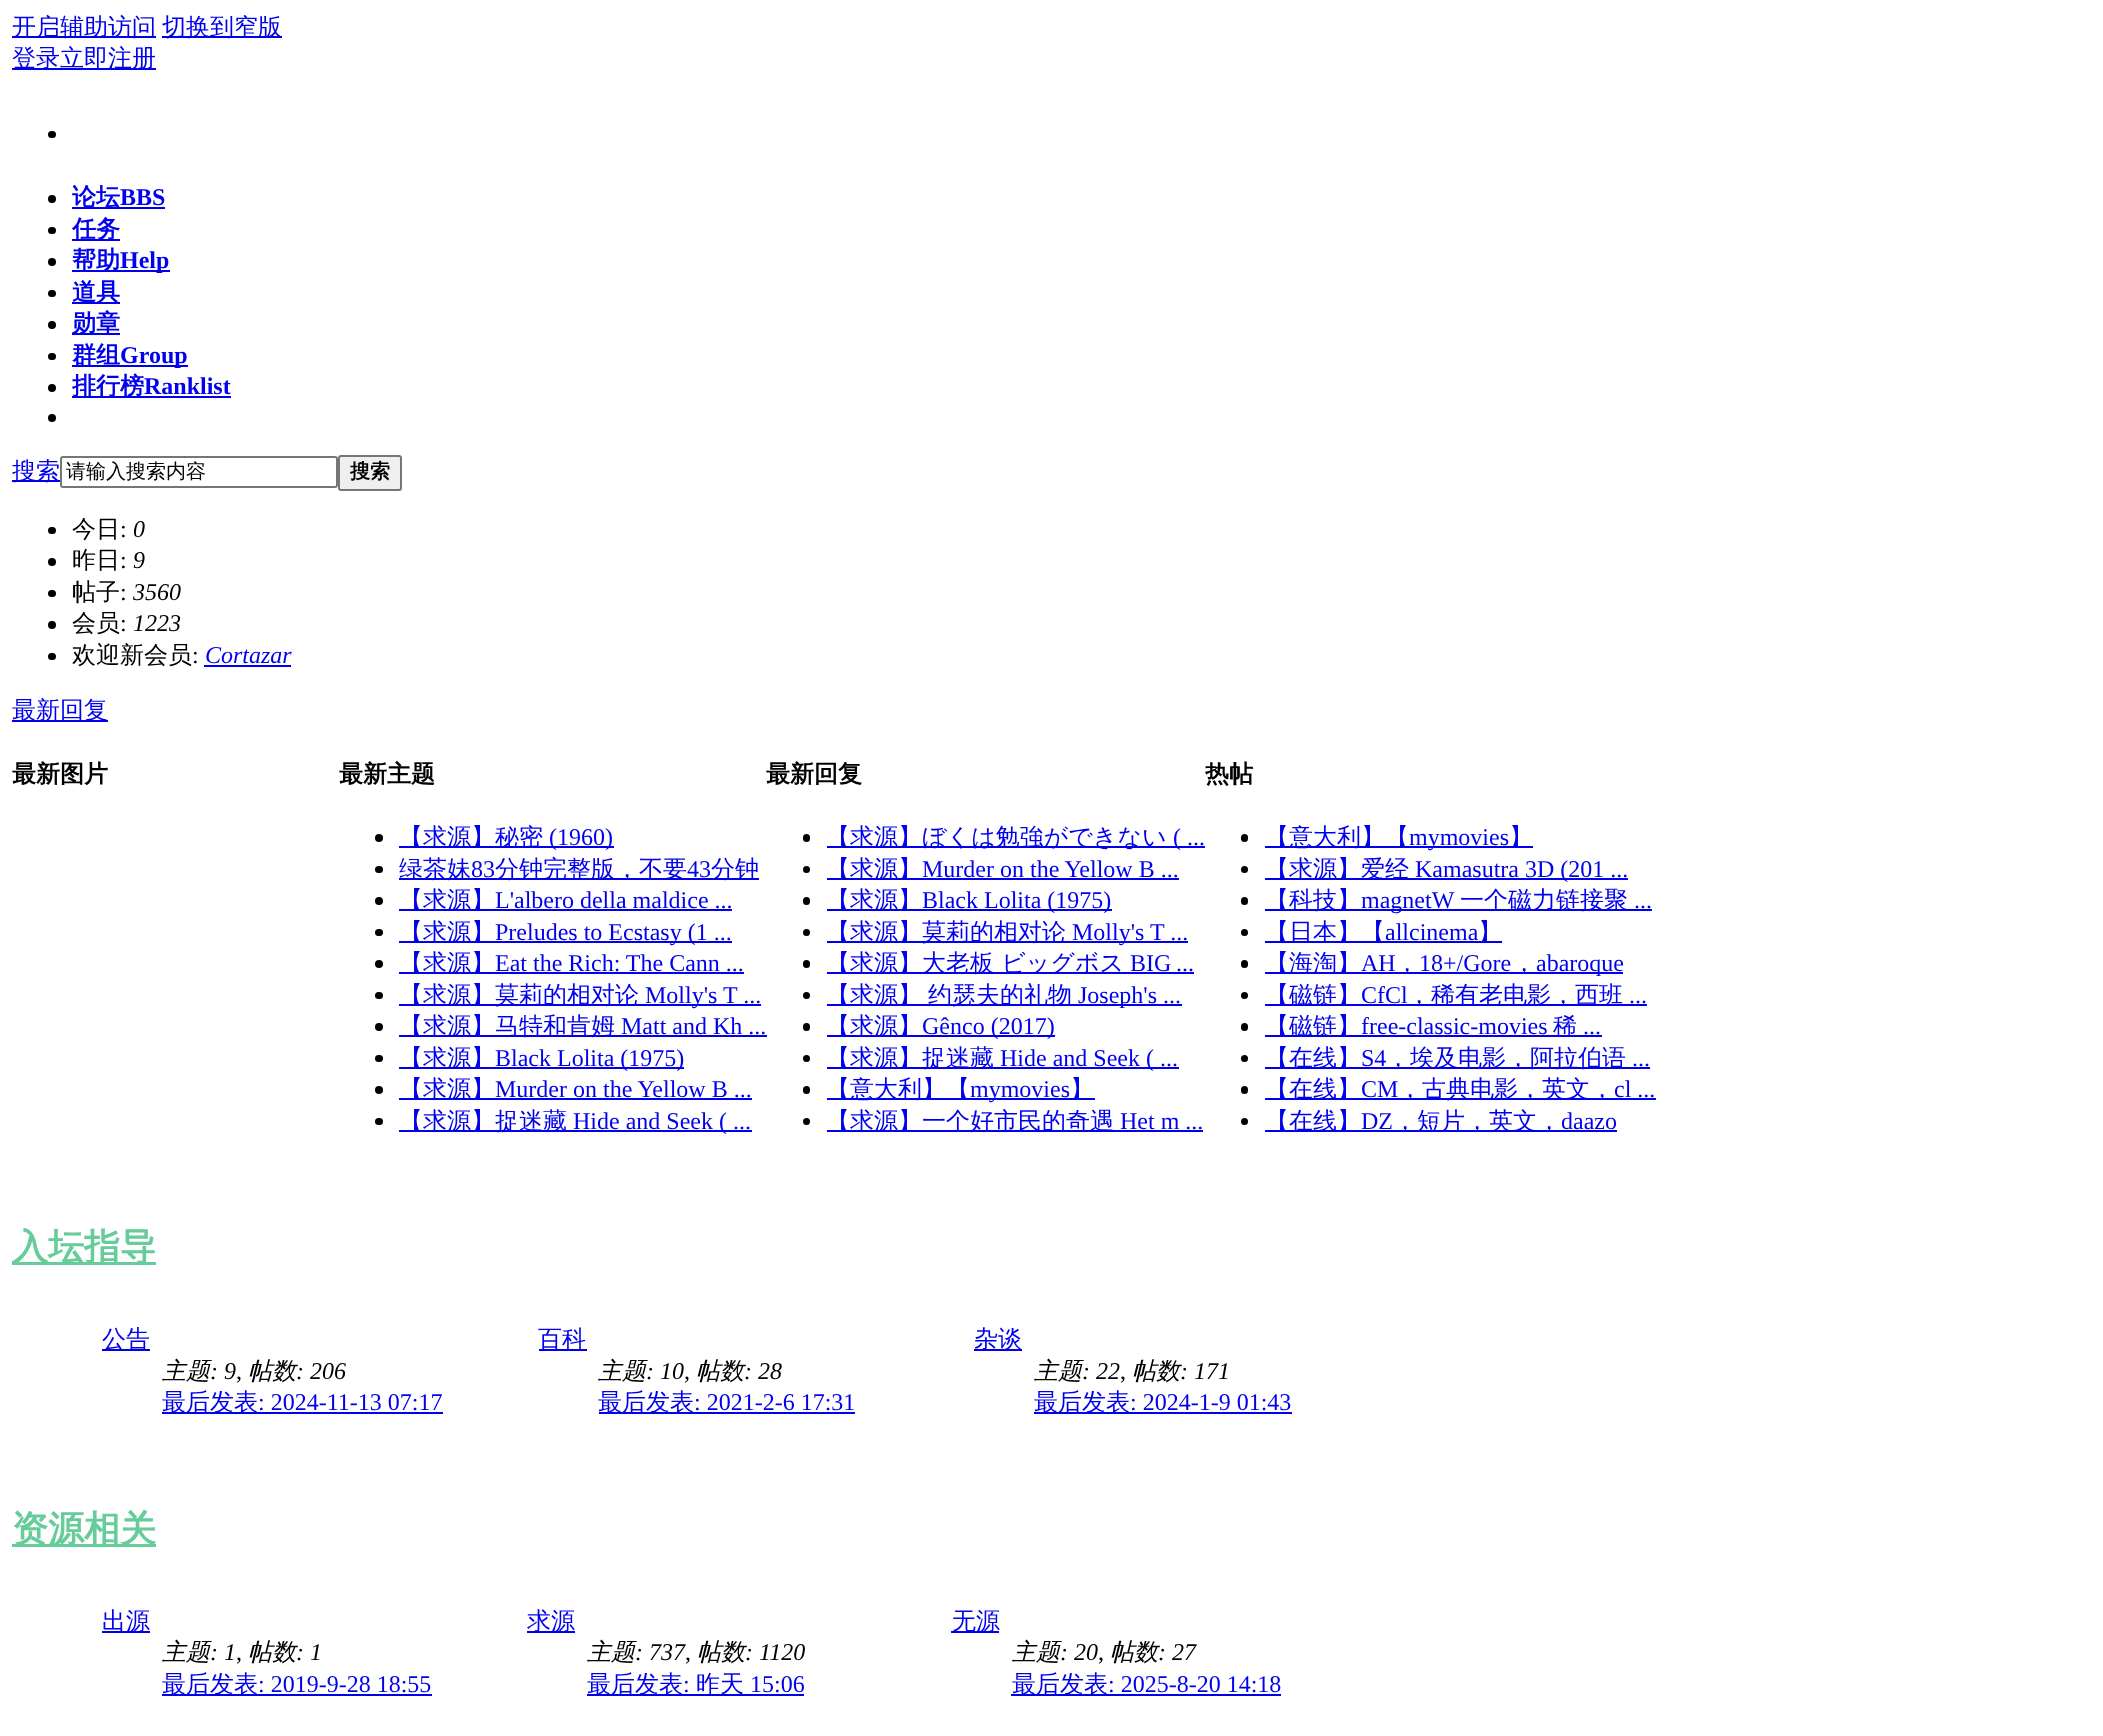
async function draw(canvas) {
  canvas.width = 2103
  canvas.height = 1736
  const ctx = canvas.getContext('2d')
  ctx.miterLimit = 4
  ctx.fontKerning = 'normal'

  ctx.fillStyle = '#fff'
  ctx.fillRect(0, 0, 2103, 1736)
  ctx.fillStyle = '#00e'
  ctx.fillRect(12, 36, 144, 2)
  ctx.font = '500 24px WenQuanYi Zen Hei'
  ctx.fillText('开启辅助访问', 12, 35)
  ctx.fillRect(162, 36, 120, 2)
  ctx.fillText('切换到窄版', 162, 35)
  ctx.fillRect(12, 68, 144, 2)
  ctx.fillText('登录立即注册', 12, 66)
  ctx.fillStyle = '#000'
  ctx.beginPath()
  ctx.roundRect(48, 131, 8, 7, 3.5)
  ctx.fill()
  ctx.beginPath()
  ctx.arc(52, 199, 4, 0, 2 * Math.PI)
  ctx.fill()
  ctx.fillStyle = '#00e'
  ctx.fillRect(72, 207, 93, 2)
  ctx.font = 'bold 24px WenQuanYi Zen Hei'
  ctx.fillText('论坛', 72, 205)
  ctx.font = 'bold 24px Liberation Serif'
  ctx.fillText('BBS', 120, 205)
  ctx.fillStyle = '#000'
  ctx.beginPath()
  ctx.roundRect(48, 227, 8, 7, 3.5)
  ctx.fill()
  ctx.fillStyle = '#00e'
  ctx.fillRect(72, 239, 48, 2)
  ctx.font = 'bold 24px WenQuanYi Zen Hei'
  ctx.fillText('任务', 72, 237)
  ctx.fillStyle = '#000'
  ctx.beginPath()
  ctx.arc(52, 262, 4, 0, 2 * Math.PI)
  ctx.fill()
  ctx.fillStyle = '#00e'
  ctx.fillRect(72, 270, 98, 2)
  ctx.fillText('帮助', 72, 268)
  ctx.font = 'bold 24px Liberation Serif'
  ctx.fillText('Help', 120, 268)
  ctx.fillStyle = '#000'
  ctx.beginPath()
  ctx.roundRect(48, 290, 8, 7, 3.5)
  ctx.fill()
  ctx.fillStyle = '#00e'
  ctx.fillRect(72, 302, 48, 2)
  ctx.font = 'bold 24px WenQuanYi Zen Hei'
  ctx.fillText('道具', 72, 300)
  ctx.fillStyle = '#000'
  ctx.beginPath()
  ctx.arc(52, 325, 4, 0, 2 * Math.PI)
  ctx.fill()
  ctx.fillStyle = '#00e'
  ctx.fillRect(72, 333, 48, 2)
  ctx.fillText('勋章', 72, 331)
  ctx.fillStyle = '#000'
  ctx.beginPath()
  ctx.roundRect(48, 353, 8, 7, 3.5)
  ctx.fill()
  ctx.fillStyle = '#00e'
  ctx.fillRect(72, 365, 116, 2)
  ctx.fillText('群组', 72, 363)
  ctx.font = 'bold 24px Liberation Serif'
  ctx.fillText('Group', 120, 363)
  ctx.fillStyle = '#000'
  ctx.beginPath()
  ctx.arc(52, 388, 4, 0, 2 * Math.PI)
  ctx.fill()
  ctx.fillStyle = '#00e'
  ctx.fillRect(72, 396, 159, 2)
  ctx.font = 'bold 24px WenQuanYi Zen Hei'
  ctx.fillText('排行榜', 72, 394)
  ctx.font = 'bold 24px Liberation Serif'
  ctx.fillText('Ranklist', 144, 394)
  ctx.fillStyle = '#000'
  ctx.beginPath()
  ctx.arc(52, 418, 4, 0, 2 * Math.PI)
  ctx.fill()
  ctx.fillStyle = '#00e'
  ctx.fillRect(12, 480, 48, 2)
  ctx.font = '500 24px WenQuanYi Zen Hei'
  ctx.fillText('搜索', 12, 479)
  ctx.beginPath()
  ctx.roundRect(61, 457, 276, 30, 2)
  ctx.strokeStyle = '#767676'
  ctx.lineWidth = 2
  ctx.stroke()
  ctx.font = '500 20px WenQuanYi Zen Hei'
  ctx.fillStyle = '#000'
  ctx.fillText('请输入搜索内容', 66, 478)
  ctx.fillStyle = '#efefef'
  ctx.beginPath()
  ctx.roundRect(339, 456, 62, 34, 2)
  ctx.fill()
  ctx.stroke()
  ctx.font = 'bold 20px WenQuanYi Zen Hei'
  ctx.fillStyle = '#000'
  ctx.fillText('搜索', 350, 478)
  ctx.beginPath()
  ctx.roundRect(48, 527, 8, 7, 3.5)
  ctx.fill()
  ctx.font = '500 24px WenQuanYi Zen Hei'
  ctx.fillText('今日', 72, 537)
  ctx.font = '24px Liberation Serif'
  ctx.fillText(':', 120, 537)
  ctx.font = 'italic 24px Liberation Serif'
  ctx.fillText('0', 133, 537)
  ctx.beginPath()
  ctx.arc(52, 562, 4, 0, 2 * Math.PI)
  ctx.fill()
  ctx.font = '500 24px WenQuanYi Zen Hei'
  ctx.fillText('昨日', 72, 568)
  ctx.font = '24px Liberation Serif'
  ctx.fillText(':', 120, 568)
  ctx.font = 'italic 24px Liberation Serif'
  ctx.fillText('9', 133, 568)
  ctx.beginPath()
  ctx.roundRect(48, 590, 8, 7, 3.5)
  ctx.fill()
  ctx.font = '500 24px WenQuanYi Zen Hei'
  ctx.fillText('帖子', 72, 600)
  ctx.font = '24px Liberation Serif'
  ctx.fillText(':', 120, 600)
  ctx.font = 'italic 24px Liberation Serif'
  ctx.fillText('3560', 133, 600)
  ctx.beginPath()
  ctx.arc(52, 625, 4, 0, 2 * Math.PI)
  ctx.fill()
  ctx.font = '500 24px WenQuanYi Zen Hei'
  ctx.fillText('会员', 72, 631)
  ctx.font = '24px Liberation Serif'
  ctx.fillText(':', 120, 631)
  ctx.font = 'italic 24px Liberation Serif'
  ctx.fillText('1223', 133, 631)
  ctx.beginPath()
  ctx.roundRect(48, 653, 8, 7, 3.5)
  ctx.fill()
  ctx.font = '500 24px WenQuanYi Zen Hei'
  ctx.fillText('欢迎新会员', 72, 663)
  ctx.font = '24px Liberation Serif'
  ctx.fillText(':', 192, 663)
  ctx.font = 'italic 24px Liberation Serif'
  ctx.fillStyle = '#00e'
  ctx.fillText('Cortazar', 205, 663)
  ctx.fillRect(204, 665, 87, 2)
  ctx.fillRect(12, 720, 96, 2)
  ctx.font = '500 24px WenQuanYi Zen Hei'
  ctx.fillText('最新回复', 12, 718)
  ctx.font = 'bold 24px WenQuanYi Zen Hei'
  ctx.fillStyle = '#000'
  ctx.fillText('最新图片', 12, 782)
  ctx.fillText('最新主题', 339, 782)
  ctx.beginPath()
  ctx.arc(379, 838, 4, 0, 2 * Math.PI)
  ctx.fill()
  ctx.fillStyle = '#00e'
  ctx.fillRect(399, 846, 215, 2)
  ctx.font = '500 24px WenQuanYi Zen Hei'
  ctx.fillText('【求源】秘密', 399, 845)
  ctx.font = '24px Liberation Serif'
  ctx.fillText('(1960)', 549, 845)
  ctx.fillStyle = '#000'
  ctx.beginPath()
  ctx.roundRect(375, 866, 8, 7, 3.5)
  ctx.fill()
  ctx.fillStyle = '#00e'
  ctx.fillRect(399, 878, 360, 2)
  ctx.font = '500 24px WenQuanYi Zen Hei'
  ctx.fillText('绿茶妹', 399, 877)
  ctx.font = '24px Liberation Serif'
  ctx.fillText('83', 471, 877)
  ctx.font = '500 24px WenQuanYi Zen Hei'
  ctx.fillText('分钟完整版，不要', 495, 877)
  ctx.font = '24px Liberation Serif'
  ctx.fillText('43', 687, 877)
  ctx.font = '500 24px WenQuanYi Zen Hei'
  ctx.fillText('分钟', 711, 877)
  ctx.fillStyle = '#000'
  ctx.beginPath()
  ctx.arc(379, 901, 4, 0, 2 * Math.PI)
  ctx.fill()
  ctx.fillStyle = '#00e'
  ctx.fillRect(399, 909, 333, 2)
  ctx.fillText('【求源】', 399, 908)
  ctx.font = '24px Liberation Serif'
  ctx.fillText('L\'albero della maldice ...', 495, 908)
  ctx.fillStyle = '#000'
  ctx.beginPath()
  ctx.roundRect(375, 929, 8, 7, 3.5)
  ctx.fill()
  ctx.fillStyle = '#00e'
  ctx.fillRect(399, 941, 333, 2)
  ctx.font = '500 24px WenQuanYi Zen Hei'
  ctx.fillText('【求源】', 399, 940)
  ctx.font = '24px Liberation Serif'
  ctx.fillText('Preludes to Ecstasy (1 ...', 495, 940)
  ctx.fillStyle = '#000'
  ctx.beginPath()
  ctx.arc(379, 964, 4, 0, 2 * Math.PI)
  ctx.fill()
  ctx.fillStyle = '#00e'
  ctx.fillRect(399, 972, 345, 2)
  ctx.font = '500 24px WenQuanYi Zen Hei'
  ctx.fillText('【求源】', 399, 971)
  ctx.font = '24px Liberation Serif'
  ctx.fillText('Eat the Rich: The Cann ...', 495, 971)
  ctx.fillStyle = '#000'
  ctx.beginPath()
  ctx.roundRect(375, 992, 8, 7, 3.5)
  ctx.fill()
  ctx.fillStyle = '#00e'
  ctx.fillRect(399, 1004, 362, 2)
  ctx.font = '500 24px WenQuanYi Zen Hei'
  ctx.fillText('【求源】莫莉的相对论', 399, 1003)
  ctx.font = '24px Liberation Serif'
  ctx.fillText('Molly\'s T ...', 645, 1003)
  ctx.fillStyle = '#000'
  ctx.beginPath()
  ctx.arc(379, 1027, 4, 0, 2 * Math.PI)
  ctx.fill()
  ctx.fillStyle = '#00e'
  ctx.fillRect(399, 1035, 368, 2)
  ctx.font = '500 24px WenQuanYi Zen Hei'
  ctx.fillText('【求源】马特和肯姆', 399, 1034)
  ctx.font = '24px Liberation Serif'
  ctx.fillText('Matt and Kh ...', 621, 1034)
  ctx.fillStyle = '#000'
  ctx.beginPath()
  ctx.roundRect(375, 1055, 8, 7, 3.5)
  ctx.fill()
  ctx.fillStyle = '#00e'
  ctx.fillRect(399, 1067, 285, 2)
  ctx.font = '500 24px WenQuanYi Zen Hei'
  ctx.fillText('【求源】', 399, 1066)
  ctx.font = '24px Liberation Serif'
  ctx.fillText('Black Lolita (1975)', 495, 1066)
  ctx.fillStyle = '#000'
  ctx.beginPath()
  ctx.arc(379, 1090, 4, 0, 2 * Math.PI)
  ctx.fill()
  ctx.fillStyle = '#00e'
  ctx.fillRect(399, 1098, 353, 2)
  ctx.font = '500 24px WenQuanYi Zen Hei'
  ctx.fillText('【求源】', 399, 1097)
  ctx.font = '24px Liberation Serif'
  ctx.fillText('Murder on the Yellow B ...', 495, 1097)
  ctx.fillStyle = '#000'
  ctx.beginPath()
  ctx.roundRect(375, 1118, 8, 7, 3.5)
  ctx.fill()
  ctx.fillStyle = '#00e'
  ctx.fillRect(399, 1130, 353, 2)
  ctx.font = '500 24px WenQuanYi Zen Hei'
  ctx.fillText('【求源】捉迷藏', 399, 1129)
  ctx.font = '24px Liberation Serif'
  ctx.fillText('Hide and Seek ( ...', 573, 1129)
  ctx.font = 'bold 24px WenQuanYi Zen Hei'
  ctx.fillStyle = '#000'
  ctx.fillText('最新回复', 766, 782)
  ctx.beginPath()
  ctx.roundRect(803, 834, 7, 8, 3.5)
  ctx.fill()
  ctx.fillStyle = '#00e'
  ctx.fillRect(827, 846, 378, 2)
  ctx.font = '500 24px WenQuanYi Zen Hei'
  ctx.fillText('【求源】ぼくは勉強ができない', 826, 845)
  ctx.font = '24px Liberation Serif'
  ctx.fillText('( ...', 1173, 845)
  ctx.fillStyle = '#000'
  ctx.beginPath()
  ctx.arc(806.5, 869.5, 3.5, 0, 2 * Math.PI)
  ctx.fill()
  ctx.fillStyle = '#00e'
  ctx.fillRect(827, 878, 352, 2)
  ctx.font = '500 24px WenQuanYi Zen Hei'
  ctx.fillText('【求源】', 826, 877)
  ctx.font = '24px Liberation Serif'
  ctx.fillText('Murder on the Yellow B ...', 922, 877)
  ctx.fillStyle = '#000'
  ctx.beginPath()
  ctx.roundRect(803, 897, 7, 8, 3.5)
  ctx.fill()
  ctx.fillStyle = '#00e'
  ctx.fillRect(827, 909, 285, 2)
  ctx.font = '500 24px WenQuanYi Zen Hei'
  ctx.fillText('【求源】', 826, 908)
  ctx.font = '24px Liberation Serif'
  ctx.fillText('Black Lolita (1975)', 922, 908)
  ctx.fillStyle = '#000'
  ctx.beginPath()
  ctx.arc(806.5, 932.5, 3.5, 0, 2 * Math.PI)
  ctx.fill()
  ctx.fillStyle = '#00e'
  ctx.fillRect(827, 941, 361, 2)
  ctx.font = '500 24px WenQuanYi Zen Hei'
  ctx.fillText('【求源】莫莉的相对论', 826, 940)
  ctx.font = '24px Liberation Serif'
  ctx.fillText('Molly\'s T ...', 1072, 940)
  ctx.fillStyle = '#000'
  ctx.beginPath()
  ctx.roundRect(803, 960, 7, 8, 3.5)
  ctx.fill()
  ctx.fillStyle = '#00e'
  ctx.fillRect(827, 972, 367, 2)
  ctx.font = '500 24px WenQuanYi Zen Hei'
  ctx.fillText('【求源】大老板 ビッグボス', 826, 971)
  ctx.font = '24px Liberation Serif'
  ctx.fillText('BIG', 1130, 971)
  ctx.fillText('...', 1176, 971)
  ctx.fillStyle = '#000'
  ctx.beginPath()
  ctx.arc(806.5, 995.5, 3.5, 0, 2 * Math.PI)
  ctx.fill()
  ctx.fillStyle = '#00e'
  ctx.fillRect(827, 1004, 355, 2)
  ctx.font = '500 24px WenQuanYi Zen Hei'
  ctx.fillText('【求源】', 826, 1003)
  ctx.fillText('约瑟夫的礼物', 928, 1003)
  ctx.font = '24px Liberation Serif'
  ctx.fillText('Joseph\'s ...', 1078, 1003)
  ctx.fillStyle = '#000'
  ctx.beginPath()
  ctx.roundRect(803, 1023, 7, 8, 3.5)
  ctx.fill()
  ctx.fillStyle = '#00e'
  ctx.fillRect(827, 1035, 228, 2)
  ctx.font = '500 24px WenQuanYi Zen Hei'
  ctx.fillText('【求源】', 826, 1034)
  ctx.font = '24px Liberation Serif'
  ctx.fillText('Gênco (2017)', 922, 1034)
  ctx.fillStyle = '#000'
  ctx.beginPath()
  ctx.arc(806.5, 1058.5, 3.5, 0, 2 * Math.PI)
  ctx.fill()
  ctx.fillStyle = '#00e'
  ctx.fillRect(827, 1067, 352, 2)
  ctx.font = '500 24px WenQuanYi Zen Hei'
  ctx.fillText('【求源】捉迷藏', 826, 1066)
  ctx.font = '24px Liberation Serif'
  ctx.fillText('Hide and Seek ( ...', 1000, 1066)
  ctx.fillStyle = '#000'
  ctx.beginPath()
  ctx.roundRect(803, 1086, 7, 8, 3.5)
  ctx.fill()
  ctx.fillStyle = '#00e'
  ctx.fillRect(827, 1098, 268, 2)
  ctx.font = '500 24px WenQuanYi Zen Hei'
  ctx.fillText('【意大利】【', 826, 1097)
  ctx.font = '24px Liberation Serif'
  ctx.fillText('mymovies', 970, 1097)
  ctx.font = '500 24px WenQuanYi Zen Hei'
  ctx.fillText('】', 1070, 1097)
  ctx.fillStyle = '#000'
  ctx.beginPath()
  ctx.arc(806.5, 1121.5, 3.5, 0, 2 * Math.PI)
  ctx.fill()
  ctx.fillStyle = '#00e'
  ctx.fillRect(827, 1130, 376, 2)
  ctx.fillText('【求源】一个好市民的奇遇', 826, 1129)
  ctx.font = '24px Liberation Serif'
  ctx.fillText('Het m ...', 1120, 1129)
  ctx.font = 'bold 24px WenQuanYi Zen Hei'
  ctx.fillStyle = '#000'
  ctx.fillText('热帖', 1205, 782)
  ctx.beginPath()
  ctx.roundRect(1241, 834, 7, 8, 3.5)
  ctx.fill()
  ctx.fillStyle = '#00e'
  ctx.fillRect(1265, 846, 268, 2)
  ctx.font = '500 24px WenQuanYi Zen Hei'
  ctx.fillText('【意大利】【', 1265, 845)
  ctx.font = '24px Liberation Serif'
  ctx.fillText('mymovies', 1409, 845)
  ctx.font = '500 24px WenQuanYi Zen Hei'
  ctx.fillText('】', 1509, 845)
  ctx.fillStyle = '#000'
  ctx.beginPath()
  ctx.arc(1244.5, 869.5, 3.5, 0, 2 * Math.PI)
  ctx.fill()
  ctx.fillStyle = '#00e'
  ctx.fillRect(1265, 878, 363, 2)
  ctx.fillText('【求源】爱经', 1265, 877)
  ctx.font = '24px Liberation Serif'
  ctx.fillText('Kamasutra 3D (201 ...', 1415, 877)
  ctx.fillStyle = '#000'
  ctx.beginPath()
  ctx.roundRect(1241, 897, 7, 8, 3.5)
  ctx.fill()
  ctx.fillStyle = '#00e'
  ctx.fillRect(1265, 909, 387, 2)
  ctx.font = '500 24px WenQuanYi Zen Hei'
  ctx.fillText('【科技】', 1265, 908)
  ctx.font = '24px Liberation Serif'
  ctx.fillText('magnetW', 1361, 908)
  ctx.font = '500 24px WenQuanYi Zen Hei'
  ctx.fillText('一个磁力链接聚', 1460, 908)
  ctx.font = '24px Liberation Serif'
  ctx.fillText('...', 1634, 908)
  ctx.fillStyle = '#000'
  ctx.beginPath()
  ctx.arc(1244.5, 932.5, 3.5, 0, 2 * Math.PI)
  ctx.fill()
  ctx.fillStyle = '#00e'
  ctx.fillRect(1265, 941, 237, 2)
  ctx.font = '500 24px WenQuanYi Zen Hei'
  ctx.fillText('【日本】【', 1265, 940)
  ctx.font = '24px Liberation Serif'
  ctx.fillText('allcinema', 1385, 940)
  ctx.font = '500 24px WenQuanYi Zen Hei'
  ctx.fillText('】', 1478, 940)
  ctx.fillStyle = '#000'
  ctx.beginPath()
  ctx.roundRect(1241, 960, 7, 8, 3.5)
  ctx.fill()
  ctx.fillStyle = '#00e'
  ctx.fillRect(1265, 972, 358, 2)
  ctx.fillText('【海淘】', 1265, 971)
  ctx.font = '24px Liberation Serif'
  ctx.fillText('AH', 1361, 971)
  ctx.fillText('18+/Gore', 1419, 971)
  ctx.fillText('abaroque', 1536, 971)
  ctx.font = '500 24px WenQuanYi Zen Hei'
  ctx.fillText('，', 1395, 971)
  ctx.fillText('，', 1512, 971)
  ctx.fillStyle = '#000'
  ctx.beginPath()
  ctx.arc(1244.5, 995.5, 3.5, 0, 2 * Math.PI)
  ctx.fill()
  ctx.fillStyle = '#00e'
  ctx.fillRect(1265, 1004, 382, 2)
  ctx.fillText('【磁链】', 1265, 1003)
  ctx.font = '24px Liberation Serif'
  ctx.fillText('CfCl', 1361, 1003)
  ctx.font = '500 24px WenQuanYi Zen Hei'
  ctx.fillText('，稀有老电影，西班', 1407, 1003)
  ctx.font = '24px Liberation Serif'
  ctx.fillText('...', 1629, 1003)
  ctx.fillStyle = '#000'
  ctx.beginPath()
  ctx.roundRect(1241, 1023, 7, 8, 3.5)
  ctx.fill()
  ctx.fillStyle = '#00e'
  ctx.fillRect(1265, 1035, 337, 2)
  ctx.font = '500 24px WenQuanYi Zen Hei'
  ctx.fillText('【磁链】', 1265, 1034)
  ctx.font = '24px Liberation Serif'
  ctx.fillText('free-classic-movies', 1361, 1034)
  ctx.font = '500 24px WenQuanYi Zen Hei'
  ctx.fillText('稀', 1553, 1034)
  ctx.font = '24px Liberation Serif'
  ctx.fillText('...', 1583, 1034)
  ctx.fillStyle = '#000'
  ctx.beginPath()
  ctx.arc(1244.5, 1058.5, 3.5, 0, 2 * Math.PI)
  ctx.fill()
  ctx.fillStyle = '#00e'
  ctx.fillRect(1265, 1067, 385, 2)
  ctx.font = '500 24px WenQuanYi Zen Hei'
  ctx.fillText('【在线】', 1265, 1066)
  ctx.font = '24px Liberation Serif'
  ctx.fillText('S4', 1361, 1066)
  ctx.font = '500 24px WenQuanYi Zen Hei'
  ctx.fillText('，埃及电影，阿拉伯语', 1386, 1066)
  ctx.font = '24px Liberation Serif'
  ctx.fillText('...', 1632, 1066)
  ctx.fillStyle = '#000'
  ctx.beginPath()
  ctx.roundRect(1241, 1086, 7, 8, 3.5)
  ctx.fill()
  ctx.fillStyle = '#00e'
  ctx.fillRect(1265, 1098, 391, 2)
  ctx.font = '500 24px WenQuanYi Zen Hei'
  ctx.fillText('【在线】', 1265, 1097)
  ctx.font = '24px Liberation Serif'
  ctx.fillText('CM', 1361, 1097)
  ctx.font = '500 24px WenQuanYi Zen Hei'
  ctx.fillText('，古典电影，英文，', 1398, 1097)
  ctx.font = '24px Liberation Serif'
  ctx.fillText('cl ...', 1614, 1097)
  ctx.fillStyle = '#000'
  ctx.beginPath()
  ctx.arc(1244.5, 1121.5, 3.5, 0, 2 * Math.PI)
  ctx.fill()
  ctx.fillStyle = '#00e'
  ctx.fillRect(1265, 1130, 352, 2)
  ctx.font = '500 24px WenQuanYi Zen Hei'
  ctx.fillText('【在线】', 1265, 1129)
  ctx.font = '24px Liberation Serif'
  ctx.fillText('DZ', 1361, 1129)
  ctx.font = '500 24px WenQuanYi Zen Hei'
  ctx.fillText('，短片，英文，', 1393, 1129)
  ctx.font = '24px Liberation Serif'
  ctx.fillText('daazo', 1561, 1129)
  ctx.fillStyle = '#6c9'
  ctx.fillRect(12, 1262, 144, 3)
  ctx.font = 'bold 36px WenQuanYi Zen Hei'
  ctx.fillText('入坛指导', 12, 1259)
  ctx.fillStyle = '#00e'
  ctx.fillRect(102, 1349, 48, 2)
  ctx.font = '500 24px WenQuanYi Zen Hei'
  ctx.fillText('公告', 102, 1347)
  ctx.font = 'italic 500 24px WenQuanYi Zen Hei'
  ctx.fillStyle = '#000'
  ctx.fillText('主题', 162, 1379)
  ctx.font = 'italic 24px Liberation Serif'
  ctx.fillText(': 9', 210, 1379)
  ctx.font = '24px Liberation Serif'
  ctx.fillText(',', 236, 1379)
  ctx.font = 'italic 500 24px WenQuanYi Zen Hei'
  ctx.fillText('帖数', 248, 1379)
  ctx.font = 'italic 24px Liberation Serif'
  ctx.fillText(': 206', 296, 1379)
  ctx.fillStyle = '#00e'
  ctx.fillRect(162, 1412, 281, 2)
  ctx.font = '500 24px WenQuanYi Zen Hei'
  ctx.fillText('最后发表', 162, 1410)
  ctx.font = '24px Liberation Serif'
  ctx.fillText(': 2024-11-13 07:17', 258, 1410)
  ctx.fillRect(539, 1349, 48, 2)
  ctx.font = '500 24px WenQuanYi Zen Hei'
  ctx.fillText('百科', 538, 1347)
  ctx.font = 'italic 500 24px WenQuanYi Zen Hei'
  ctx.fillStyle = '#000'
  ctx.fillText('主题', 598, 1379)
  ctx.font = 'italic 24px Liberation Serif'
  ctx.fillText(': 10', 646, 1379)
  ctx.font = '24px Liberation Serif'
  ctx.fillText(',', 684, 1379)
  ctx.font = 'italic 500 24px WenQuanYi Zen Hei'
  ctx.fillText('帖数', 696, 1379)
  ctx.font = 'italic 24px Liberation Serif'
  ctx.fillText(': 28', 744, 1379)
  ctx.fillStyle = '#00e'
  ctx.fillRect(599, 1412, 256, 2)
  ctx.font = '500 24px WenQuanYi Zen Hei'
  ctx.fillText('最后发表', 598, 1410)
  ctx.font = '24px Liberation Serif'
  ctx.fillText(': 2021-2-6 17:31', 694, 1410)
  ctx.fillRect(974, 1349, 48, 2)
  ctx.font = '500 24px WenQuanYi Zen Hei'
  ctx.fillText('杂谈', 974, 1347)
  ctx.font = 'italic 500 24px WenQuanYi Zen Hei'
  ctx.fillStyle = '#000'
  ctx.fillText('主题', 1034, 1379)
  ctx.font = 'italic 24px Liberation Serif'
  ctx.fillText(': 22', 1082, 1379)
  ctx.font = '24px Liberation Serif'
  ctx.fillText(',', 1120, 1379)
  ctx.font = 'italic 500 24px WenQuanYi Zen Hei'
  ctx.fillText('帖数', 1132, 1379)
  ctx.font = 'italic 24px Liberation Serif'
  ctx.fillText(': 171', 1180, 1379)
  ctx.fillStyle = '#00e'
  ctx.fillRect(1034, 1412, 258, 2)
  ctx.font = '500 24px WenQuanYi Zen Hei'
  ctx.fillText('最后发表', 1034, 1410)
  ctx.font = '24px Liberation Serif'
  ctx.fillText(': 2024-1-9 01:43', 1130, 1410)
  ctx.fillStyle = '#6c9'
  ctx.fillRect(12, 1544, 144, 3)
  ctx.font = 'bold 36px WenQuanYi Zen Hei'
  ctx.fillText('资源相关', 12, 1541)
  ctx.fillStyle = '#00e'
  ctx.fillRect(102, 1631, 48, 2)
  ctx.font = '500 24px WenQuanYi Zen Hei'
  ctx.fillText('出源', 102, 1629)
  ctx.font = 'italic 500 24px WenQuanYi Zen Hei'
  ctx.fillStyle = '#000'
  ctx.fillText('主题', 162, 1660)
  ctx.font = 'italic 24px Liberation Serif'
  ctx.fillText(': 1', 210, 1660)
  ctx.font = '24px Liberation Serif'
  ctx.fillText(',', 236, 1660)
  ctx.font = 'italic 500 24px WenQuanYi Zen Hei'
  ctx.fillText('帖数', 248, 1660)
  ctx.font = 'italic 24px Liberation Serif'
  ctx.fillText(': 1', 296, 1660)
  ctx.fillStyle = '#00e'
  ctx.fillRect(162, 1694, 270, 2)
  ctx.font = '500 24px WenQuanYi Zen Hei'
  ctx.fillText('最后发表', 162, 1692)
  ctx.font = '24px Liberation Serif'
  ctx.fillText(': 2019-9-28 18:55', 258, 1692)
  ctx.fillRect(527, 1631, 48, 2)
  ctx.font = '500 24px WenQuanYi Zen Hei'
  ctx.fillText('求源', 527, 1629)
  ctx.font = 'italic 500 24px WenQuanYi Zen Hei'
  ctx.fillStyle = '#000'
  ctx.fillText('主题', 587, 1660)
  ctx.font = 'italic 24px Liberation Serif'
  ctx.fillText(': 737', 635, 1660)
  ctx.font = '24px Liberation Serif'
  ctx.fillText(',', 685, 1660)
  ctx.font = 'italic 500 24px WenQuanYi Zen Hei'
  ctx.fillText('帖数', 697, 1660)
  ctx.font = 'italic 24px Liberation Serif'
  ctx.fillText(': 1120', 745, 1660)
  ctx.fillStyle = '#00e'
  ctx.fillRect(587, 1694, 217, 2)
  ctx.font = '500 24px WenQuanYi Zen Hei'
  ctx.fillText('最后发表', 587, 1692)
  ctx.font = '24px Liberation Serif'
  ctx.fillText(':', 683, 1692)
  ctx.font = '500 24px WenQuanYi Zen Hei'
  ctx.fillText('昨天', 696, 1692)
  ctx.font = '24px Liberation Serif'
  ctx.fillText('15:06', 750, 1692)
  ctx.fillRect(951, 1631, 48, 2)
  ctx.font = '500 24px WenQuanYi Zen Hei'
  ctx.fillText('无源', 952, 1629)
  ctx.font = 'italic 500 24px WenQuanYi Zen Hei'
  ctx.fillStyle = '#000'
  ctx.fillText('主题', 1012, 1660)
  ctx.font = 'italic 24px Liberation Serif'
  ctx.fillText(': 20', 1060, 1660)
  ctx.font = '24px Liberation Serif'
  ctx.fillText(',', 1098, 1660)
  ctx.font = 'italic 500 24px WenQuanYi Zen Hei'
  ctx.fillText('帖数', 1110, 1660)
  ctx.font = 'italic 24px Liberation Serif'
  ctx.fillText(': 27', 1158, 1660)
  ctx.fillStyle = '#00e'
  ctx.fillRect(1011, 1694, 270, 2)
  ctx.font = '500 24px WenQuanYi Zen Hei'
  ctx.fillText('最后发表', 1012, 1692)
  ctx.font = '24px Liberation Serif'
  ctx.fillText(': 2025-8-20 14:18', 1108, 1692)
}

draw(document.querySelector('canvas'))
